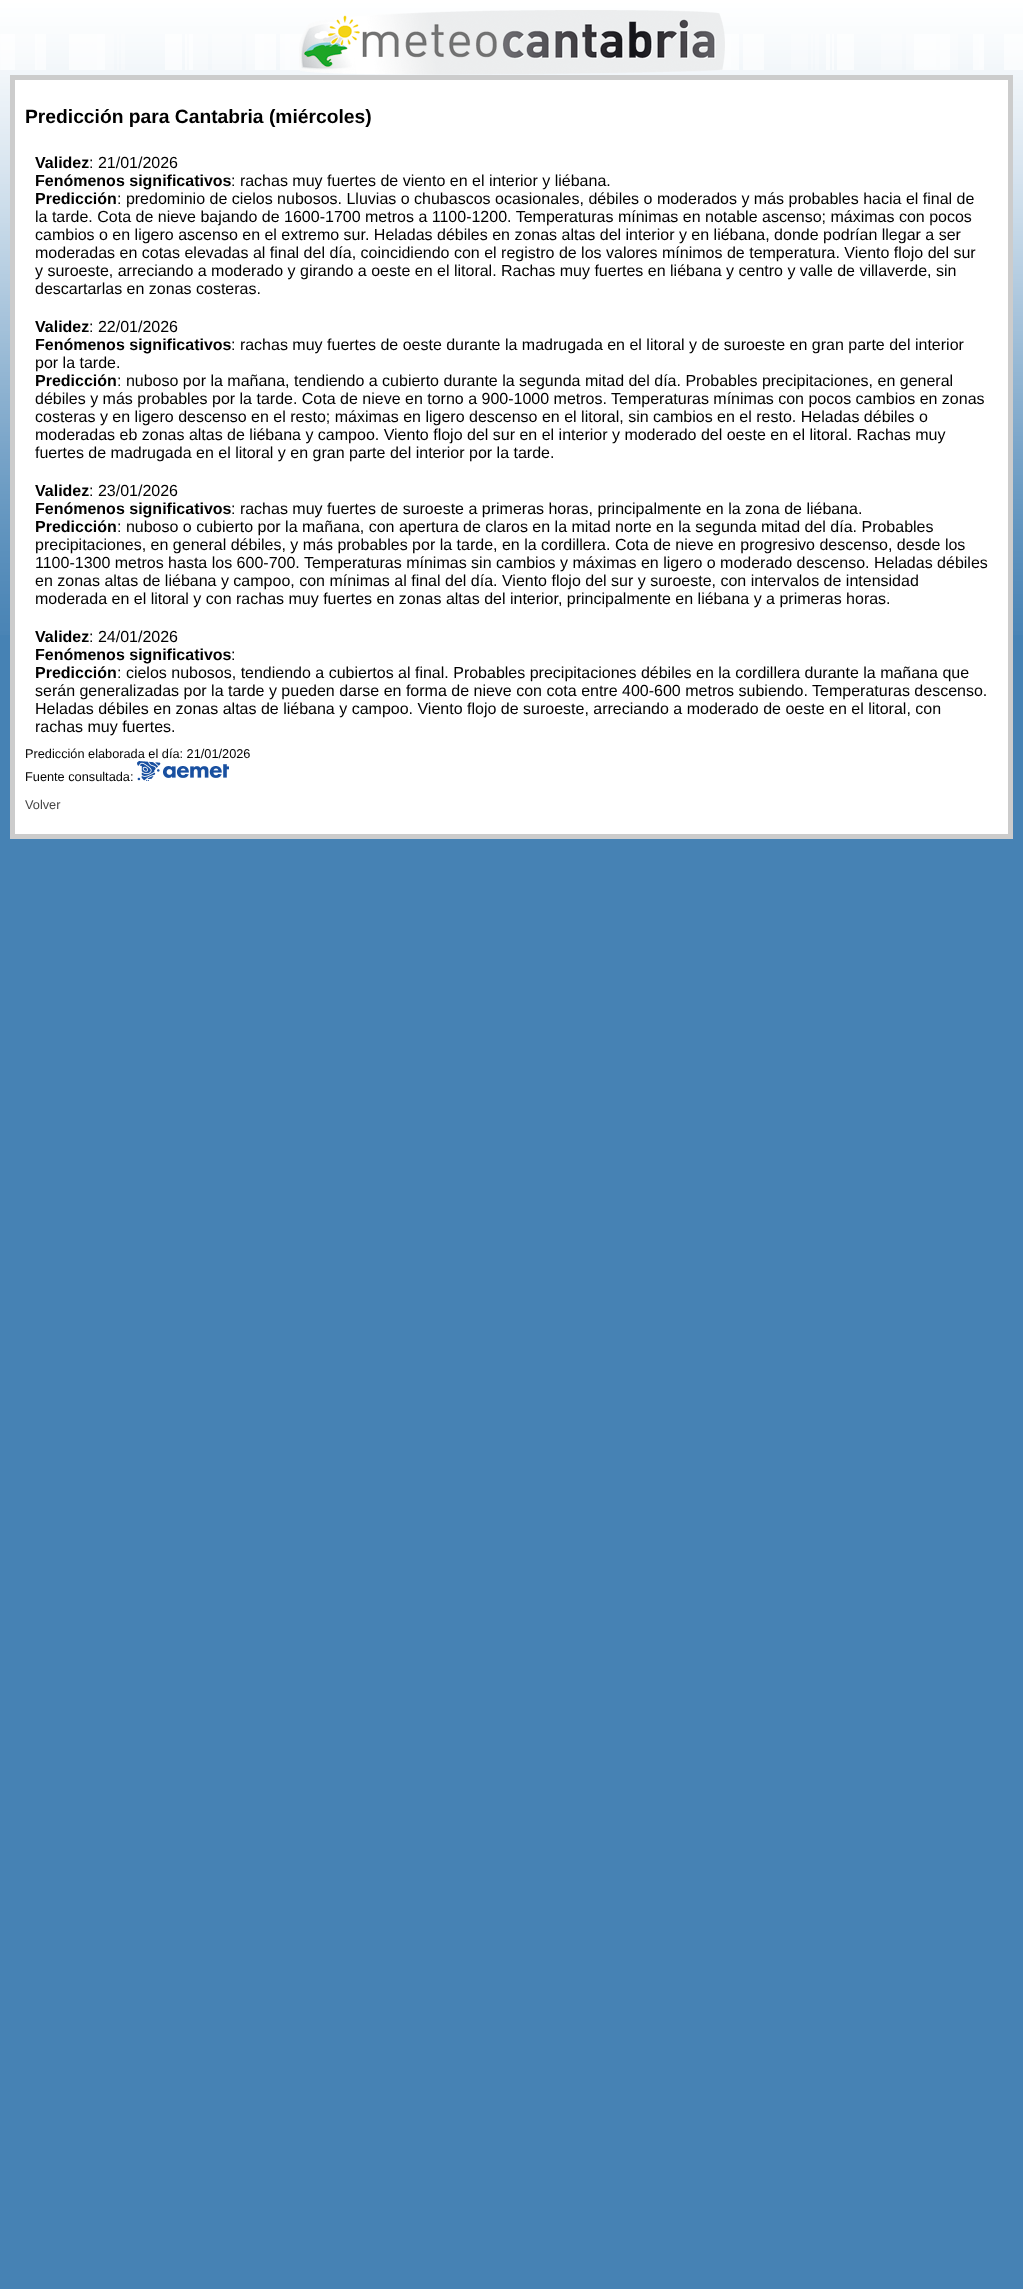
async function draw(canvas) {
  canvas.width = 1023
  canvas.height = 2289
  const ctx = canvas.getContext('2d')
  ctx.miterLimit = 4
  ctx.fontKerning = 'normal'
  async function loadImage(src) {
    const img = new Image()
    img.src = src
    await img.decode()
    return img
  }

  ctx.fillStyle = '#4682b4'
  ctx.fillRect(0, 0, 1023, 2289)
  ctx.drawImage(await loadImage('image0.png'), 0, 0, 1023, 635)
  ctx.drawImage(await loadImage('image1.png'), 0, 34, 1023, 36)
  ctx.drawImage(await loadImage('image2.png'), 299, 10, 426, 65)
  ctx.fillStyle = '#fff'
  ctx.beginPath()
  ctx.rect(12.5, 77.5, 998, 759)
  ctx.fill()
  ctx.strokeStyle = '#ccc'
  ctx.lineWidth = 5
  ctx.stroke()
  ctx.font = 'bold 19.25px Liberation Sans'
  ctx.fillStyle = '#000'
  ctx.fillText('Predicción para Cantabria (miércoles)', 25, 123)
  ctx.font = 'bold 16px Liberation Sans'
  ctx.fillText('Validez', 35, 168)
  ctx.font = '16px Liberation Sans'
  ctx.fillText(': 21/01/2026', 89, 168)
  ctx.font = 'bold 16px Liberation Sans'
  ctx.fillText('Fenómenos significativos', 35, 186)
  ctx.font = '16px Liberation Sans'
  ctx.fillText(': rachas muy fuertes de viento en el interior y liébana.', 231, 186)
  ctx.font = 'bold 16px Liberation Sans'
  ctx.fillText('Predicción', 35, 204)
  ctx.font = '16px Liberation Sans'
  ctx.fillText(': predominio de cielos nubosos. Lluvias o chubascos ocasionales, débiles o moderados y más probables hacia el final de', 117, 204)
  ctx.fillText('la tarde. Cota de nieve bajando de 1600-1700 metros a 1100-1200. Temperaturas mínimas en notable ascenso; máximas con pocos', 35, 222)
  ctx.fillText('cambios o en ligero ascenso en el extremo sur. Heladas débiles en zonas altas del interior y en liébana, donde podrían llegar a ser', 35, 240)
  ctx.fillText('moderadas en cotas elevadas al final del día, coincidiendo con el registro de los valores mínimos de temperatura. Viento flojo del sur', 35, 258)
  ctx.fillText('y suroeste, arreciando a moderado y girando a oeste en el litoral. Rachas muy fuertes en liébana y centro y valle de villaverde, sin', 35, 276)
  ctx.fillText('descartarlas en zonas costeras.', 35, 294)
  ctx.font = 'bold 16px Liberation Sans'
  ctx.fillText('Validez', 35, 332)
  ctx.font = '16px Liberation Sans'
  ctx.fillText(': 22/01/2026', 89, 332)
  ctx.font = 'bold 16px Liberation Sans'
  ctx.fillText('Fenómenos significativos', 35, 350)
  ctx.font = '16px Liberation Sans'
  ctx.fillText(': rachas muy fuertes de oeste durante la madrugada en el litoral y de suroeste en gran parte del interior', 231, 350)
  ctx.fillText('por la tarde.', 35, 368)
  ctx.font = 'bold 16px Liberation Sans'
  ctx.fillText('Predicción', 35, 386)
  ctx.font = '16px Liberation Sans'
  ctx.fillText(': nuboso por la mañana, tendiendo a cubierto durante la segunda mitad del día. Probables precipitaciones, en general', 117, 386)
  ctx.fillText('débiles y más probables por la tarde. Cota de nieve en torno a 900-1000 metros. Temperaturas mínimas con pocos cambios en zonas', 35, 404)
  ctx.fillText('costeras y en ligero descenso en el resto; máximas en ligero descenso en el litoral, sin cambios en el resto. Heladas débiles o', 35, 422)
  ctx.fillText('moderadas eb zonas altas de liébana y campoo. Viento flojo del sur en el interior y moderado del oeste en el litoral. Rachas muy', 35, 440)
  ctx.fillText('fuertes de madrugada en el litoral y en gran parte del interior por la tarde.', 35, 458)
  ctx.font = 'bold 16px Liberation Sans'
  ctx.fillText('Validez', 35, 496)
  ctx.font = '16px Liberation Sans'
  ctx.fillText(': 23/01/2026', 89, 496)
  ctx.font = 'bold 16px Liberation Sans'
  ctx.fillText('Fenómenos significativos', 35, 514)
  ctx.font = '16px Liberation Sans'
  ctx.fillText(': rachas muy fuertes de suroeste a primeras horas, principalmente en la zona de liébana.', 231, 514)
  ctx.font = 'bold 16px Liberation Sans'
  ctx.fillText('Predicción', 35, 532)
  ctx.font = '16px Liberation Sans'
  ctx.fillText(': nuboso o cubierto por la mañana, con apertura de claros en la mitad norte en la segunda mitad del día. Probables', 117, 532)
  ctx.fillText('precipitaciones, en general débiles, y más probables por la tarde, en la cordillera. Cota de nieve en progresivo descenso, desde los', 35, 550)
  ctx.fillText('1100-1300 metros hasta los 600-700. Temperaturas mínimas sin cambios y máximas en ligero o moderado descenso. Heladas débiles', 35, 568)
  ctx.fillText('en zonas altas de liébana y campoo, con mínimas al final del día. Viento flojo del sur y suroeste, con intervalos de intensidad', 35, 586)
  ctx.fillText('moderada en el litoral y con rachas muy fuertes en zonas altas del interior, principalmente en liébana y a primeras horas.', 35, 604)
  ctx.font = 'bold 16px Liberation Sans'
  ctx.fillText('Validez', 35, 642)
  ctx.font = '16px Liberation Sans'
  ctx.fillText(': 24/01/2026', 89, 642)
  ctx.font = 'bold 16px Liberation Sans'
  ctx.fillText('Fenómenos significativos', 35, 660)
  ctx.font = '16px Liberation Sans'
  ctx.fillText(':', 231, 660)
  ctx.font = 'bold 16px Liberation Sans'
  ctx.fillText('Predicción', 35, 678)
  ctx.font = '16px Liberation Sans'
  ctx.fillText(': cielos nubosos, tendiendo a cubiertos al final. Probables precipitaciones débiles en la cordillera durante la mañana que', 117, 678)
  ctx.fillText('serán generalizadas por la tarde y pueden darse en forma de nieve con cota entre 400-600 metros subiendo. Temperaturas descenso.', 35, 696)
  ctx.fillText('Heladas débiles en zonas altas de liébana y campoo. Viento flojo de suroeste, arreciando a moderado de oeste en el litoral, con', 35, 714)
  ctx.fillText('rachas muy fuertes.', 35, 732)
  ctx.font = '12.75px Liberation Sans'
  ctx.fillText('Predicción elaborada el día: 21/01/2026', 25, 758)
  ctx.fillText('Fuente consultada:', 25, 781)
  ctx.drawImage(await loadImage('image3.png'), 137, 761, 92, 20)
  ctx.fillStyle = '#444'
  ctx.fillText('Volver', 25, 809)
}

draw(document.querySelector('canvas'))
